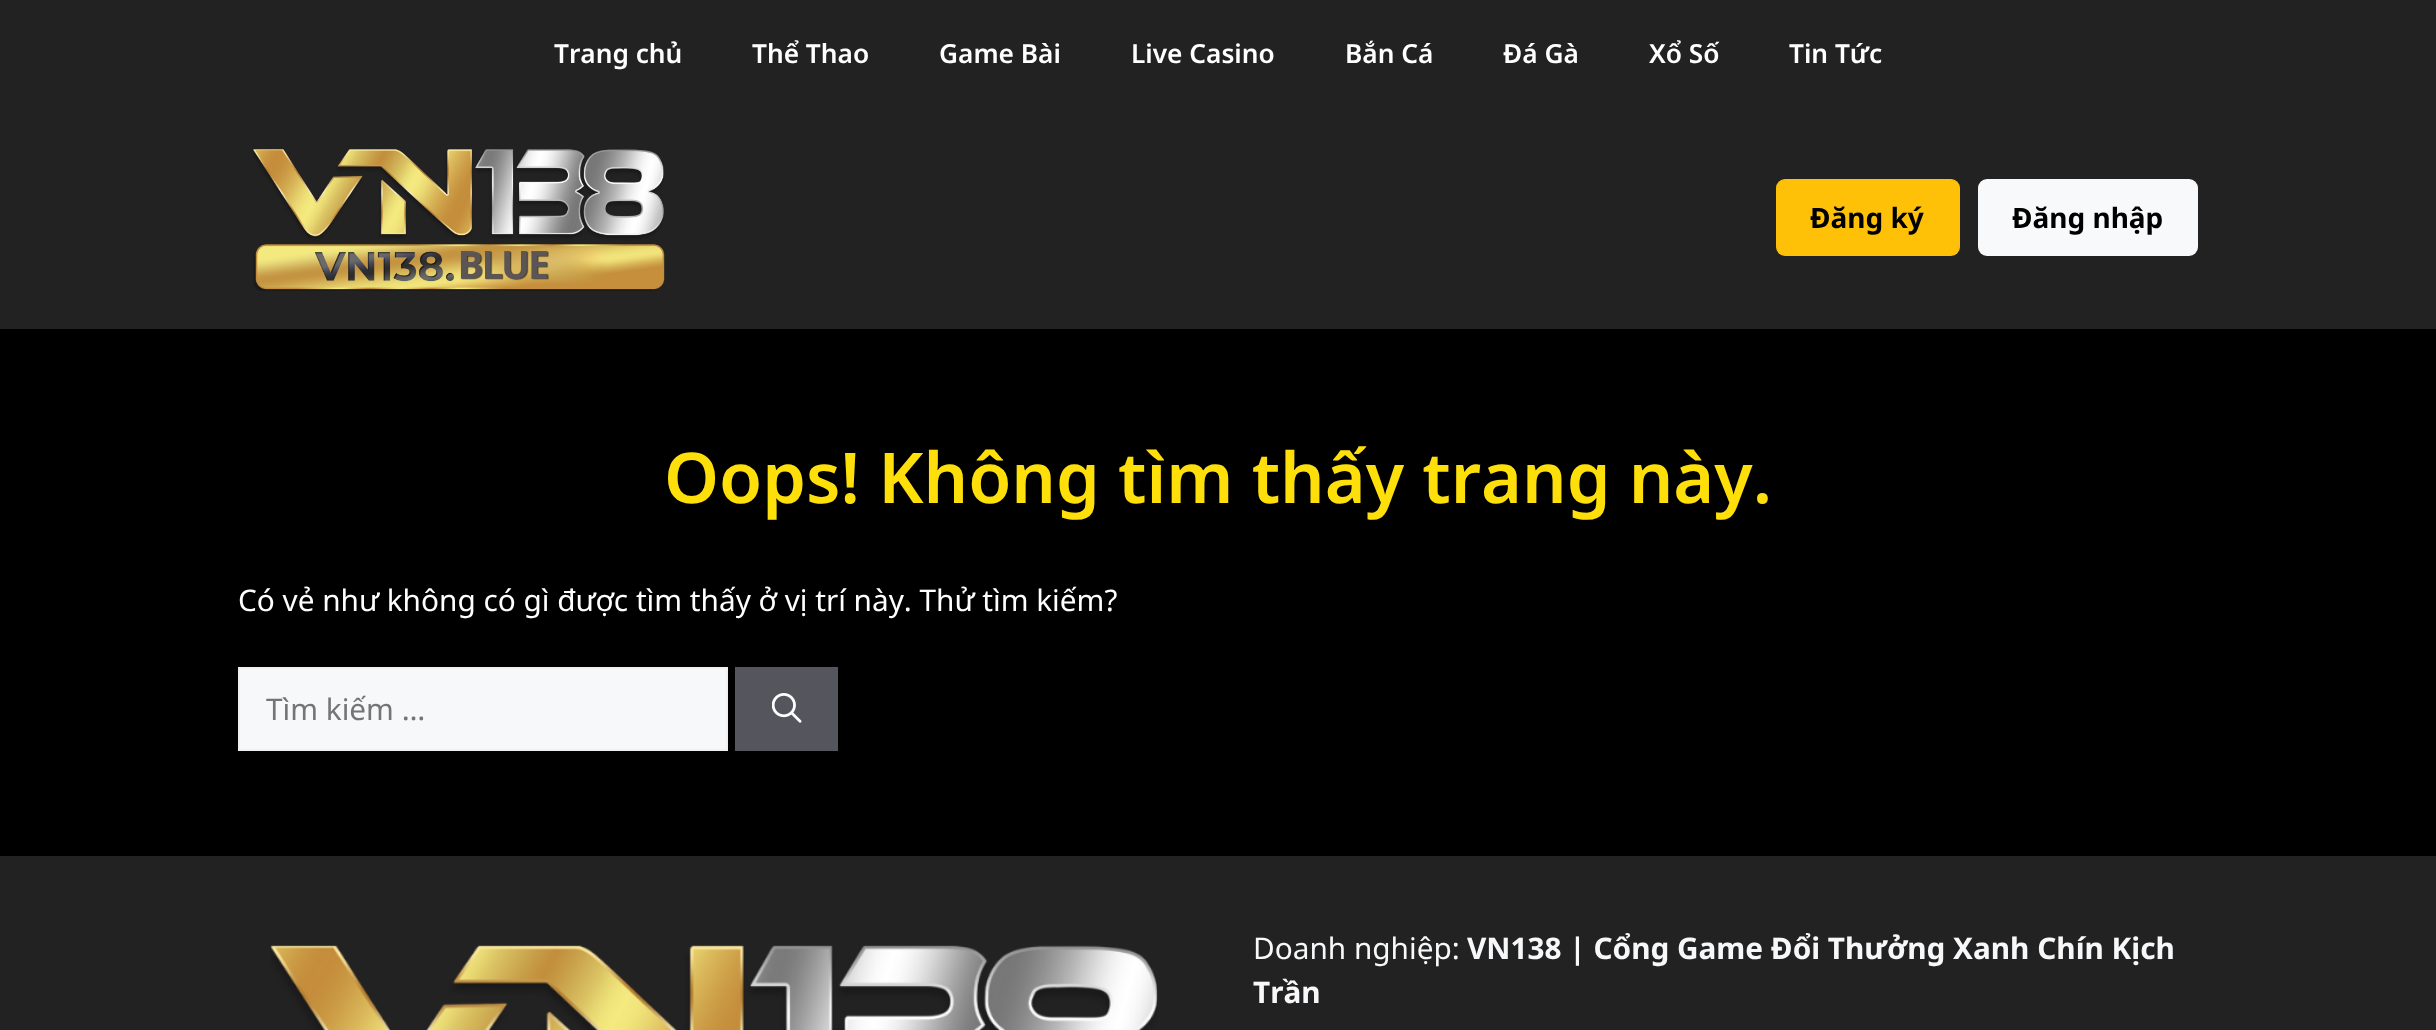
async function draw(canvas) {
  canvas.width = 2436
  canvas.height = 1030
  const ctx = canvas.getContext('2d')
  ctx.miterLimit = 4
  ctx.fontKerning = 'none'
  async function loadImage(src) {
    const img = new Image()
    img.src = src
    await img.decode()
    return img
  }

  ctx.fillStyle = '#000'
  ctx.fillRect(0, 0, 2436, 1030)
  ctx.fillStyle = '#222'
  ctx.fillRect(0, 0, 2436, 329)
  ctx.font = '600 26.25px Noto Sans'
  ctx.fillStyle = '#fff'
  ctx.fillText('Trang chủ', 554, 63)
  ctx.fillText('Thể Thao', 752, 63)
  ctx.fillText('Game Bài', 939, 63)
  ctx.fillText('Live Casino', 1131, 63)
  ctx.fillText('Bắn Cá', 1345, 63)
  ctx.fillText('Đá Gà', 1503, 63)
  ctx.fillText('Xổ Số', 1649, 63)
  ctx.fillText('Tin Tức', 1789, 63)
  ctx.drawImage(await loadImage('image0.png'), 253, 149, 412, 142)
  ctx.fillStyle = '#ffc107'
  ctx.beginPath()
  ctx.roundRect(1776, 179, 184, 77, 9)
  ctx.fill()
  ctx.font = 'bold 28px Noto Sans'
  ctx.fillStyle = '#000'
  ctx.fillText('Đăng ký', 1810, 228)
  ctx.fillStyle = '#f8f9fa'
  ctx.beginPath()
  ctx.roundRect(1978, 179, 220, 77, 9)
  ctx.fill()
  ctx.fillStyle = '#000'
  ctx.fillText('Đăng nhập', 2012, 228)
  ctx.font = '600 70px Noto Sans'
  ctx.fillStyle = '#fedf0a'
  ctx.fillText('Oops! Không tìm thấy trang này.', 664, 503)
  ctx.font = '29.75px Noto Sans'
  ctx.fillStyle = '#fff'
  ctx.fillText('Có vẻ như không có gì được tìm thấy ở vị trí này. Thử tìm kiếm?', 238, 611)
  ctx.fillStyle = '#f7f8f9'
  ctx.beginPath()
  ctx.rect(239, 668, 488, 82)
  ctx.fill()
  ctx.strokeStyle = '#f0f0f0'
  ctx.lineWidth = 2
  ctx.stroke()
  ctx.fillStyle = '#757575'
  ctx.fillText('Tìm kiếm …', 266, 720)
  ctx.fillStyle = '#55555e'
  ctx.fillRect(735, 667, 103, 84)
  ctx.drawImage(await loadImage('image1.png'), 772, 693, 30, 30)
  ctx.fillStyle = '#222'
  ctx.fillRect(0, 856, 2436, 174)
  ctx.drawImage(await loadImage('image2.png'), 270, 945, 888, 85)
  ctx.fillStyle = '#f7f8f9'
  ctx.fillText('Doanh nghiệp:', 1253, 959)
  ctx.font = 'bold 29.75px Noto Sans'
  ctx.fillText('VN138 | Cổng Game Đổi Thưởng Xanh Chín Kịch', 1467, 959)
  ctx.fillText('Trần', 1253, 1003)
}

draw(document.querySelector('canvas'))
